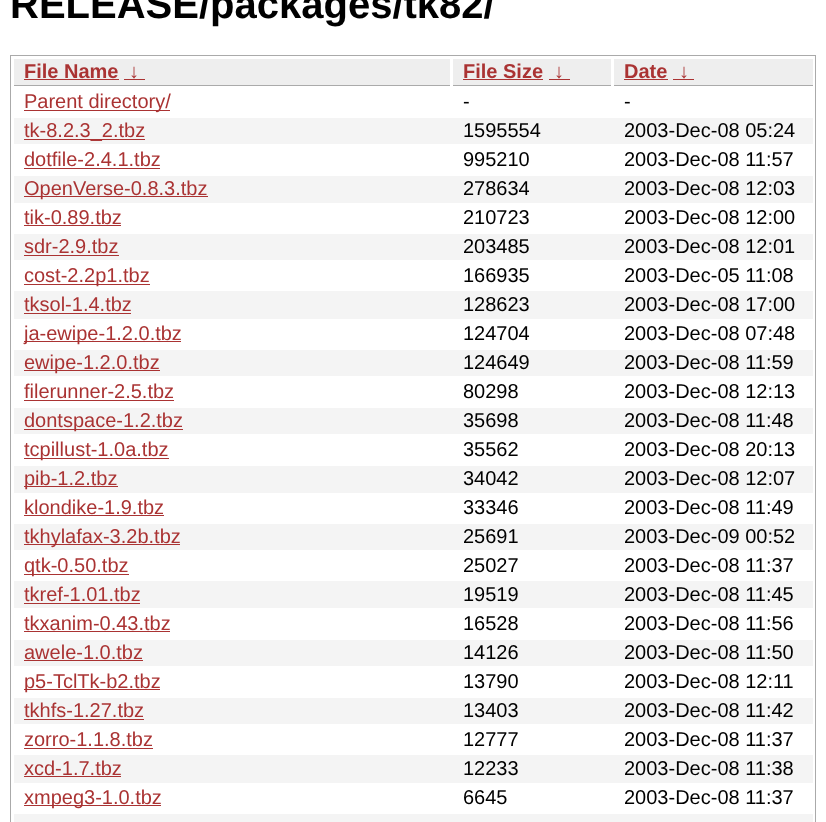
async function draw(canvas) {
  canvas.width = 826
  canvas.height = 822
  const ctx = canvas.getContext('2d')
  ctx.miterLimit = 4
  ctx.fontKerning = 'normal'

  ctx.fillStyle = '#fff'
  ctx.fillRect(0, 0, 826, 822)
  ctx.font = 'bold 40px Liberation Sans'
  ctx.fillStyle = '#000'
  ctx.fillText('RELEASE/packages/tk82/', 10, 18)
  ctx.strokeStyle = '#aaa'
  ctx.strokeRect(10.5, 55.5, 805, 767)
  ctx.fillStyle = '#eee'
  ctx.fillRect(14, 59, 436, 26)
  ctx.fillStyle = '#aaa'
  ctx.fillRect(14, 85, 436, 1)
  ctx.font = 'bold 20px Liberation Sans'
  ctx.fillStyle = '#a33'
  ctx.fillText('File Name', 24, 78)
  ctx.fillRect(24, 79, 95, 1)
  ctx.fillText('↓', 129, 78)
  ctx.fillRect(124, 79, 21, 1)
  ctx.fillStyle = '#eee'
  ctx.fillRect(453, 59, 158, 26)
  ctx.fillStyle = '#aaa'
  ctx.fillRect(453, 85, 158, 1)
  ctx.fillStyle = '#a33'
  ctx.fillText('File Size', 463, 78)
  ctx.fillRect(463, 79, 80, 1)
  ctx.fillText('↓', 554, 78)
  ctx.fillRect(549, 79, 21, 1)
  ctx.fillStyle = '#eee'
  ctx.fillRect(614, 59, 199, 26)
  ctx.fillStyle = '#aaa'
  ctx.fillRect(614, 85, 199, 1)
  ctx.fillStyle = '#a33'
  ctx.fillText('Date', 624, 78)
  ctx.fillRect(624, 79, 44, 1)
  ctx.fillText('↓', 679, 78)
  ctx.fillRect(673, 79, 21, 1)
  ctx.fillRect(24, 110, 146, 1)
  ctx.font = '20px Liberation Sans'
  ctx.fillText('Parent directory/', 24, 108)
  ctx.fillStyle = '#000'
  ctx.fillText('-', 463, 108)
  ctx.fillText('-', 624, 108)
  ctx.fillStyle = '#f4f4f4'
  ctx.fillRect(14, 118, 799, 26)
  ctx.fillStyle = '#a33'
  ctx.fillRect(24, 139, 121, 1)
  ctx.fillText('tk-8.2.3_2.tbz', 24, 137)
  ctx.fillStyle = '#000'
  ctx.fillText('1595554', 463, 137)
  ctx.fillText('2003-Dec-08 05:24', 624, 137)
  ctx.fillStyle = '#a33'
  ctx.fillText('dotfile-2.4.1.tbz', 24, 166)
  ctx.fillRect(24, 168, 136, 1)
  ctx.fillStyle = '#000'
  ctx.fillText('995210', 463, 166)
  ctx.fillText('2003-Dec-08 11:57', 624, 166)
  ctx.fillStyle = '#f4f4f4'
  ctx.fillRect(14, 176, 799, 27)
  ctx.fillStyle = '#a33'
  ctx.fillRect(24, 196, 184, 1)
  ctx.fillText('OpenVerse-0.8.3.tbz', 24, 195)
  ctx.fillStyle = '#000'
  ctx.fillText('278634', 463, 195)
  ctx.fillText('2003-Dec-08 12:03', 624, 195)
  ctx.fillStyle = '#a33'
  ctx.fillText('tik-0.89.tbz', 24, 224)
  ctx.fillRect(24, 225, 97, 1)
  ctx.fillStyle = '#000'
  ctx.fillText('210723', 463, 224)
  ctx.fillText('2003-Dec-08 12:00', 624, 224)
  ctx.fillStyle = '#f4f4f4'
  ctx.fillRect(14, 234, 799, 26)
  ctx.fillStyle = '#a33'
  ctx.fillText('sdr-2.9.tbz', 24, 253)
  ctx.fillRect(24, 255, 95, 1)
  ctx.fillStyle = '#000'
  ctx.fillText('203485', 463, 253)
  ctx.fillText('2003-Dec-08 12:01', 624, 253)
  ctx.fillStyle = '#a33'
  ctx.fillRect(24, 284, 126, 1)
  ctx.fillText('cost-2.2p1.tbz', 24, 282)
  ctx.fillStyle = '#000'
  ctx.fillText('166935', 463, 282)
  ctx.fillText('2003-Dec-05 11:08', 624, 282)
  ctx.fillStyle = '#f4f4f4'
  ctx.fillRect(14, 291, 799, 28)
  ctx.fillStyle = '#a33'
  ctx.fillText('tksol-1.4.tbz', 24, 311)
  ctx.fillRect(24, 313, 107, 1)
  ctx.fillStyle = '#000'
  ctx.fillText('128623', 463, 311)
  ctx.fillText('2003-Dec-08 17:00', 624, 311)
  ctx.fillStyle = '#a33'
  ctx.fillRect(24, 341, 157, 1)
  ctx.fillText('ja-ewipe-1.2.0.tbz', 24, 340)
  ctx.fillStyle = '#000'
  ctx.fillText('124704', 463, 340)
  ctx.fillText('2003-Dec-08 07:48', 624, 340)
  ctx.fillStyle = '#f4f4f4'
  ctx.fillRect(14, 350, 799, 26)
  ctx.fillStyle = '#a33'
  ctx.fillRect(24, 370, 136, 1)
  ctx.fillText('ewipe-1.2.0.tbz', 24, 369)
  ctx.fillStyle = '#000'
  ctx.fillText('124649', 463, 369)
  ctx.fillText('2003-Dec-08 11:59', 624, 369)
  ctx.fillStyle = '#a33'
  ctx.fillText('filerunner-2.5.tbz', 24, 398)
  ctx.fillRect(24, 400, 150, 1)
  ctx.fillStyle = '#000'
  ctx.fillText('80298', 463, 398)
  ctx.fillText('2003-Dec-08 12:13', 624, 398)
  ctx.fillStyle = '#f4f4f4'
  ctx.fillRect(14, 408, 799, 26)
  ctx.fillStyle = '#a33'
  ctx.fillRect(24, 429, 159, 1)
  ctx.fillText('dontspace-1.2.tbz', 24, 427)
  ctx.fillStyle = '#000'
  ctx.fillText('35698', 463, 427)
  ctx.fillText('2003-Dec-08 11:48', 624, 427)
  ctx.fillStyle = '#a33'
  ctx.fillRect(24, 458, 145, 1)
  ctx.fillText('tcpillust-1.0a.tbz', 24, 456)
  ctx.fillStyle = '#000'
  ctx.fillText('35562', 463, 456)
  ctx.fillText('2003-Dec-08 20:13', 624, 456)
  ctx.fillStyle = '#f4f4f4'
  ctx.fillRect(14, 466, 799, 27)
  ctx.fillStyle = '#a33'
  ctx.fillRect(24, 486, 94, 1)
  ctx.fillText('pib-1.2.tbz', 24, 485)
  ctx.fillStyle = '#000'
  ctx.fillText('34042', 463, 485)
  ctx.fillText('2003-Dec-08 12:07', 624, 485)
  ctx.fillStyle = '#a33'
  ctx.fillText('klondike-1.9.tbz', 24, 514)
  ctx.fillRect(24, 515, 140, 1)
  ctx.fillStyle = '#000'
  ctx.fillText('33346', 463, 514)
  ctx.fillText('2003-Dec-08 11:49', 624, 514)
  ctx.fillStyle = '#f4f4f4'
  ctx.fillRect(14, 524, 799, 26)
  ctx.fillStyle = '#a33'
  ctx.fillRect(24, 544, 156, 1)
  ctx.fillText('tkhylafax-3.2b.tbz', 24, 543)
  ctx.fillStyle = '#000'
  ctx.fillText('25691', 463, 543)
  ctx.fillText('2003-Dec-09 00:52', 624, 543)
  ctx.fillStyle = '#a33'
  ctx.fillRect(24, 574, 105, 1)
  ctx.fillText('qtk-0.50.tbz', 24, 572)
  ctx.fillStyle = '#000'
  ctx.fillText('25027', 463, 572)
  ctx.fillText('2003-Dec-08 11:37', 624, 572)
  ctx.fillStyle = '#f4f4f4'
  ctx.fillRect(14, 581, 799, 27)
  ctx.fillStyle = '#a33'
  ctx.fillText('tkref-1.01.tbz', 24, 601)
  ctx.fillRect(24, 603, 116, 1)
  ctx.fillStyle = '#000'
  ctx.fillText('19519', 463, 601)
  ctx.fillText('2003-Dec-08 11:45', 624, 601)
  ctx.fillStyle = '#a33'
  ctx.fillText('tkxanim-0.43.tbz', 24, 630)
  ctx.fillRect(24, 631, 146, 1)
  ctx.fillStyle = '#000'
  ctx.fillText('16528', 463, 630)
  ctx.fillText('2003-Dec-08 11:56', 624, 630)
  ctx.fillStyle = '#f4f4f4'
  ctx.fillRect(14, 640, 799, 26)
  ctx.fillStyle = '#a33'
  ctx.fillText('awele-1.0.tbz', 24, 659)
  ctx.fillRect(24, 660, 119, 1)
  ctx.fillStyle = '#000'
  ctx.fillText('14126', 463, 659)
  ctx.fillText('2003-Dec-08 11:50', 624, 659)
  ctx.fillStyle = '#a33'
  ctx.fillRect(24, 689, 136, 1)
  ctx.fillText('p5-TclTk-b2.tbz', 24, 688)
  ctx.fillStyle = '#000'
  ctx.fillText('13790', 463, 688)
  ctx.fillText('2003-Dec-08 12:11', 624, 688)
  ctx.fillStyle = '#f4f4f4'
  ctx.fillRect(14, 698, 799, 26)
  ctx.fillStyle = '#a33'
  ctx.fillText('tkhfs-1.27.tbz', 24, 717)
  ctx.fillRect(24, 719, 120, 1)
  ctx.fillStyle = '#000'
  ctx.fillText('13403', 463, 717)
  ctx.fillText('2003-Dec-08 11:42', 624, 717)
  ctx.fillStyle = '#a33'
  ctx.fillText('zorro-1.1.8.tbz', 24, 746)
  ctx.fillRect(24, 748, 129, 1)
  ctx.fillStyle = '#000'
  ctx.fillText('12777', 463, 746)
  ctx.fillText('2003-Dec-08 11:37', 624, 746)
  ctx.fillStyle = '#f4f4f4'
  ctx.fillRect(14, 755, 799, 28)
  ctx.fillStyle = '#a33'
  ctx.fillText('xcd-1.7.tbz', 24, 775)
  ctx.fillRect(24, 776, 97, 1)
  ctx.fillStyle = '#000'
  ctx.fillText('12233', 463, 775)
  ctx.fillText('2003-Dec-08 11:38', 624, 775)
  ctx.fillStyle = '#a33'
  ctx.fillRect(24, 805, 137, 1)
  ctx.fillText('xmpeg3-1.0.tbz', 24, 804)
  ctx.fillStyle = '#000'
  ctx.fillText('6645', 463, 804)
  ctx.fillText('2003-Dec-08 11:37', 624, 804)
  ctx.fillStyle = '#f4f4f4'
  ctx.fillRect(14, 814, 799, 8)
}

draw(document.querySelector('canvas'))
